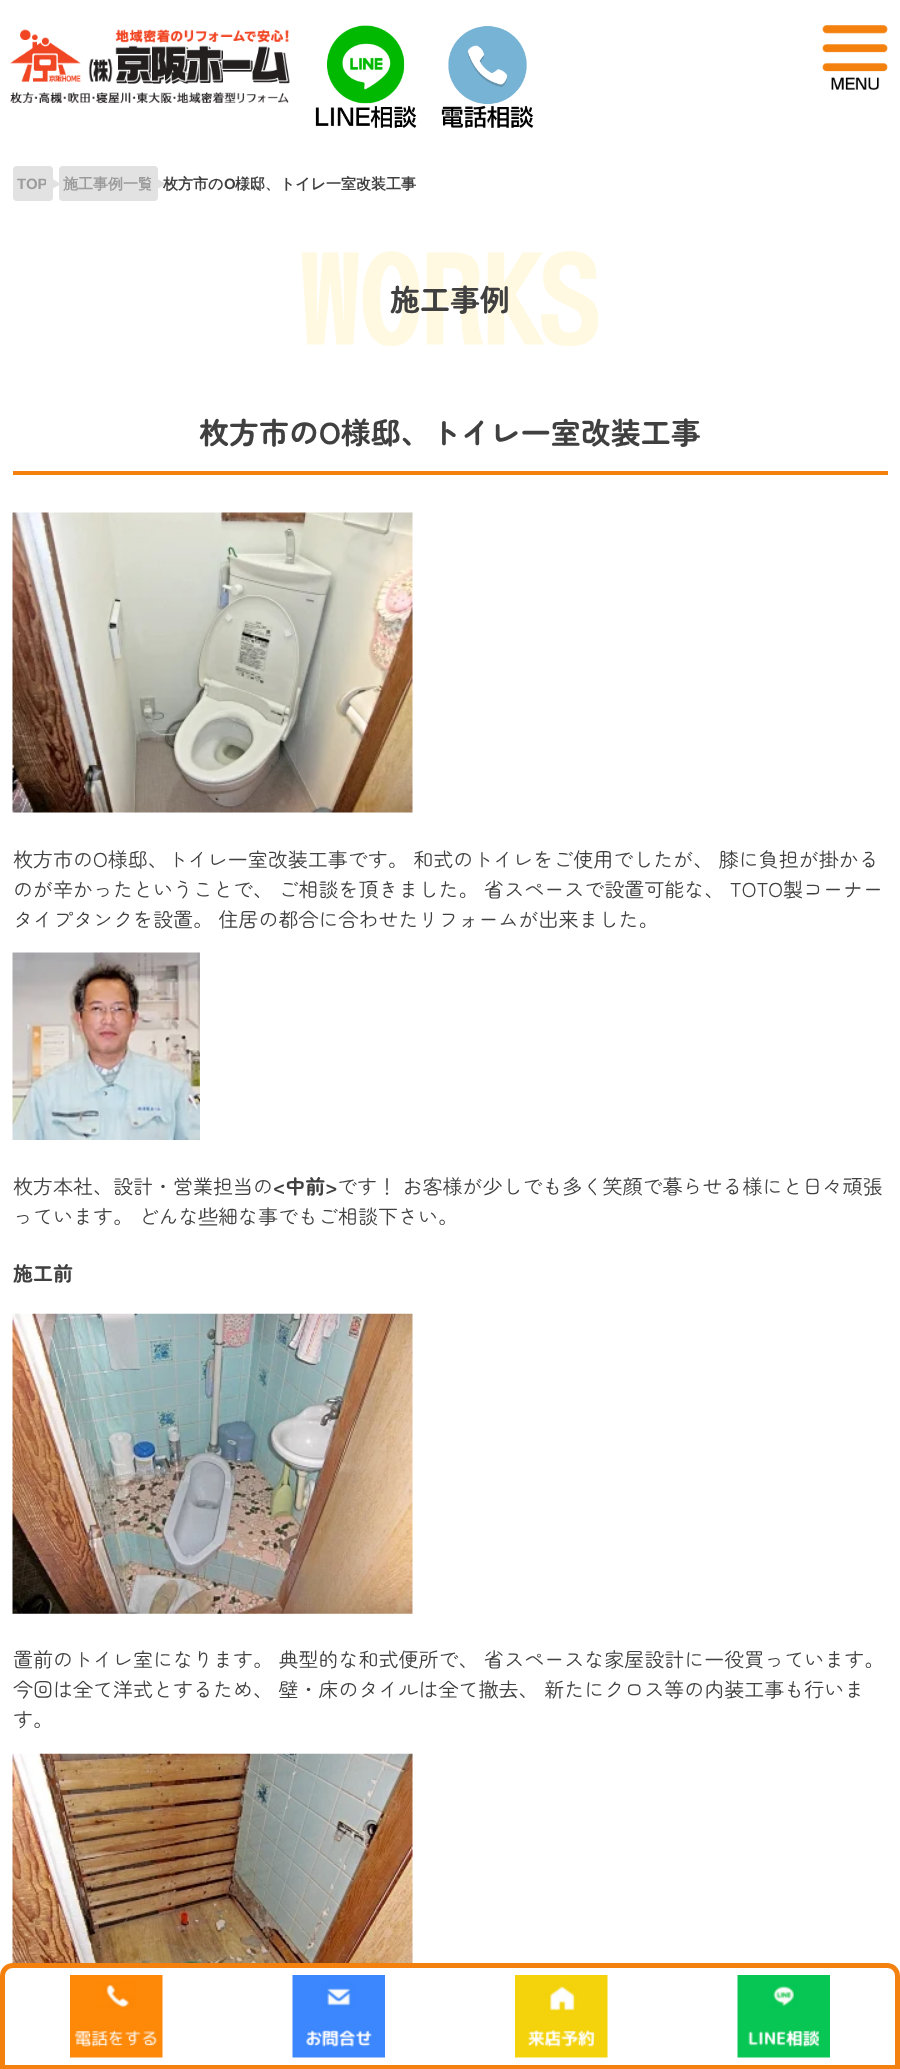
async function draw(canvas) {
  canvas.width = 900
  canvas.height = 2069
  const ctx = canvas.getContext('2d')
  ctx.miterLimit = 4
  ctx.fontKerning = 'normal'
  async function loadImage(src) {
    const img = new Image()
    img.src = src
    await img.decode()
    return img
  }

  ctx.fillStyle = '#fff'
  ctx.fillRect(0, 0, 900, 2069)
  ctx.drawImage(await loadImage('image0.png'), 10, 29, 280, 75)
  ctx.drawImage(await loadImage('image1.png'), 315, 25, 102, 103)
  ctx.drawImage(await loadImage('image2.png'), 441, 26, 93, 102)
  ctx.drawImage(await loadImage('image3.png'), 822, 25, 66, 65)
  ctx.fillStyle = '#e2e2e2'
  ctx.beginPath()
  ctx.roundRect(13, 166, 40, 35, 4)
  ctx.fill()
  ctx.font = 'bold 15px Liberation Sans'
  ctx.fillStyle = '#9b9b9b'
  ctx.fillText('TOP', 17, 189)
  ctx.fillStyle = '#e2e2e2'
  ctx.beginPath()
  ctx.moveTo(46, 192.5)
  ctx.lineTo(46, 175)
  ctx.lineTo(61, 184)
  ctx.closePath()
  ctx.fill()
  ctx.beginPath()
  ctx.roundRect(59, 166, 99, 35, 4)
  ctx.fill()
  ctx.font = 'bold 15px WenQuanYi Zen Hei'
  ctx.fillStyle = '#9b9b9b'
  ctx.fillText('施工事例一覧', 63, 189)
  ctx.fillStyle = '#e2e2e2'
  ctx.beginPath()
  ctx.moveTo(151, 192.5)
  ctx.lineTo(151, 175)
  ctx.lineTo(166, 184)
  ctx.closePath()
  ctx.fill()
  ctx.fillStyle = '#404040'
  ctx.fillText('枚方市の', 163, 189)
  ctx.font = 'bold 15px Liberation Sans'
  ctx.fillText('O', 224, 189)
  ctx.font = 'bold 15px WenQuanYi Zen Hei'
  ctx.fillText('様邸、トイレ一室改装工事', 235, 189)
  ctx.drawImage(await loadImage('image4.png'), 301, 251, 298, 95)
  ctx.font = 'bold 30px Zen Maru Gothic'
  ctx.fillText('施工事例', 390, 311)
  ctx.fillStyle = '#f4810e'
  ctx.fillRect(13, 471, 875, 4)
  ctx.fillStyle = '#404040'
  ctx.fillText('枚方市のO様邸、トイレ一室改装工事', 199, 444)
  ctx.drawImage(await loadImage('image5.png'), 12, 512, 401, 301)
  ctx.font = '20px Zen Maru Gothic'
  ctx.fillText('枚方市のO様邸、トイレ一室改装工事です。 和式のトイレをご使用でしたが、 膝に負担が掛かる', 13, 867)
  ctx.fillText('のが辛かったということで、 ご相談を頂きました。 省スペースで設置可能な、 TOTO製コーナー', 13, 897)
  ctx.fillText('タイプタンクを設置。 住居の都合に合わせたリフォームが出来ました。', 13, 927)
  ctx.drawImage(await loadImage('image6.png'), 12, 952, 188, 188)
  ctx.fillText('枚方本社、設計・営業担当の', 13, 1194)
  ctx.font = 'bold 20px Zen Maru Gothic'
  ctx.fillText('<中前>', 273, 1194)
  ctx.font = '20px Zen Maru Gothic'
  ctx.fillText('です！ お客様が少しでも多く笑顔で暮らせる様にと日々頑張', 337, 1194)
  ctx.fillText('っています。 どんな', 13, 1224)
  ctx.font = '500 20px WenQuanYi Zen Hei'
  ctx.fillText('些', 198, 1224)
  ctx.font = '20px Zen Maru Gothic'
  ctx.fillText('細な事でもご相談下さい。', 218, 1224)
  ctx.font = 'bold 20px Zen Maru Gothic'
  ctx.fillText('施工前', 13, 1281)
  ctx.drawImage(await loadImage('image7.png'), 12, 1313, 401, 301)
  ctx.font = '20px Zen Maru Gothic'
  ctx.fillText('置前のトイレ室になります。 典型的な和式便所で、 省スペースな家屋設計に一役買っています。', 13, 1667)
  ctx.fillText('今回は全て洋式とするため、 壁・床のタイルは全て撤去、 新たにクロス等の内装工事も行いま', 13, 1697)
  ctx.fillText('す。', 13, 1727)
  ctx.drawImage(await loadImage('image8.png'), 12, 1753, 401, 211)
  ctx.fillStyle = '#fff'
  ctx.beginPath()
  ctx.moveTo(13, 1965.5)
  ctx.lineTo(887, 1965.5)
  ctx.bezierCurveTo(893, 1965.5, 897.5, 1970, 897.5, 1976)
  ctx.lineTo(897.5, 2067.5)
  ctx.lineTo(2.5, 2067.5)
  ctx.lineTo(2.5, 1976)
  ctx.bezierCurveTo(2.5, 1970, 7, 1965.5, 13, 1965.5)
  ctx.closePath()
  ctx.fill()
  ctx.strokeStyle = '#f4810e'
  ctx.lineWidth = 5
  ctx.stroke()
  ctx.drawImage(await loadImage('image9.png'), 70, 1975, 93, 83)
  ctx.drawImage(await loadImage('image10.png'), 292, 1975, 93, 83)
  ctx.drawImage(await loadImage('image11.png'), 515, 1975, 93, 83)
  ctx.drawImage(await loadImage('image12.png'), 737, 1975, 93, 83)
}

draw(document.querySelector('canvas'))
